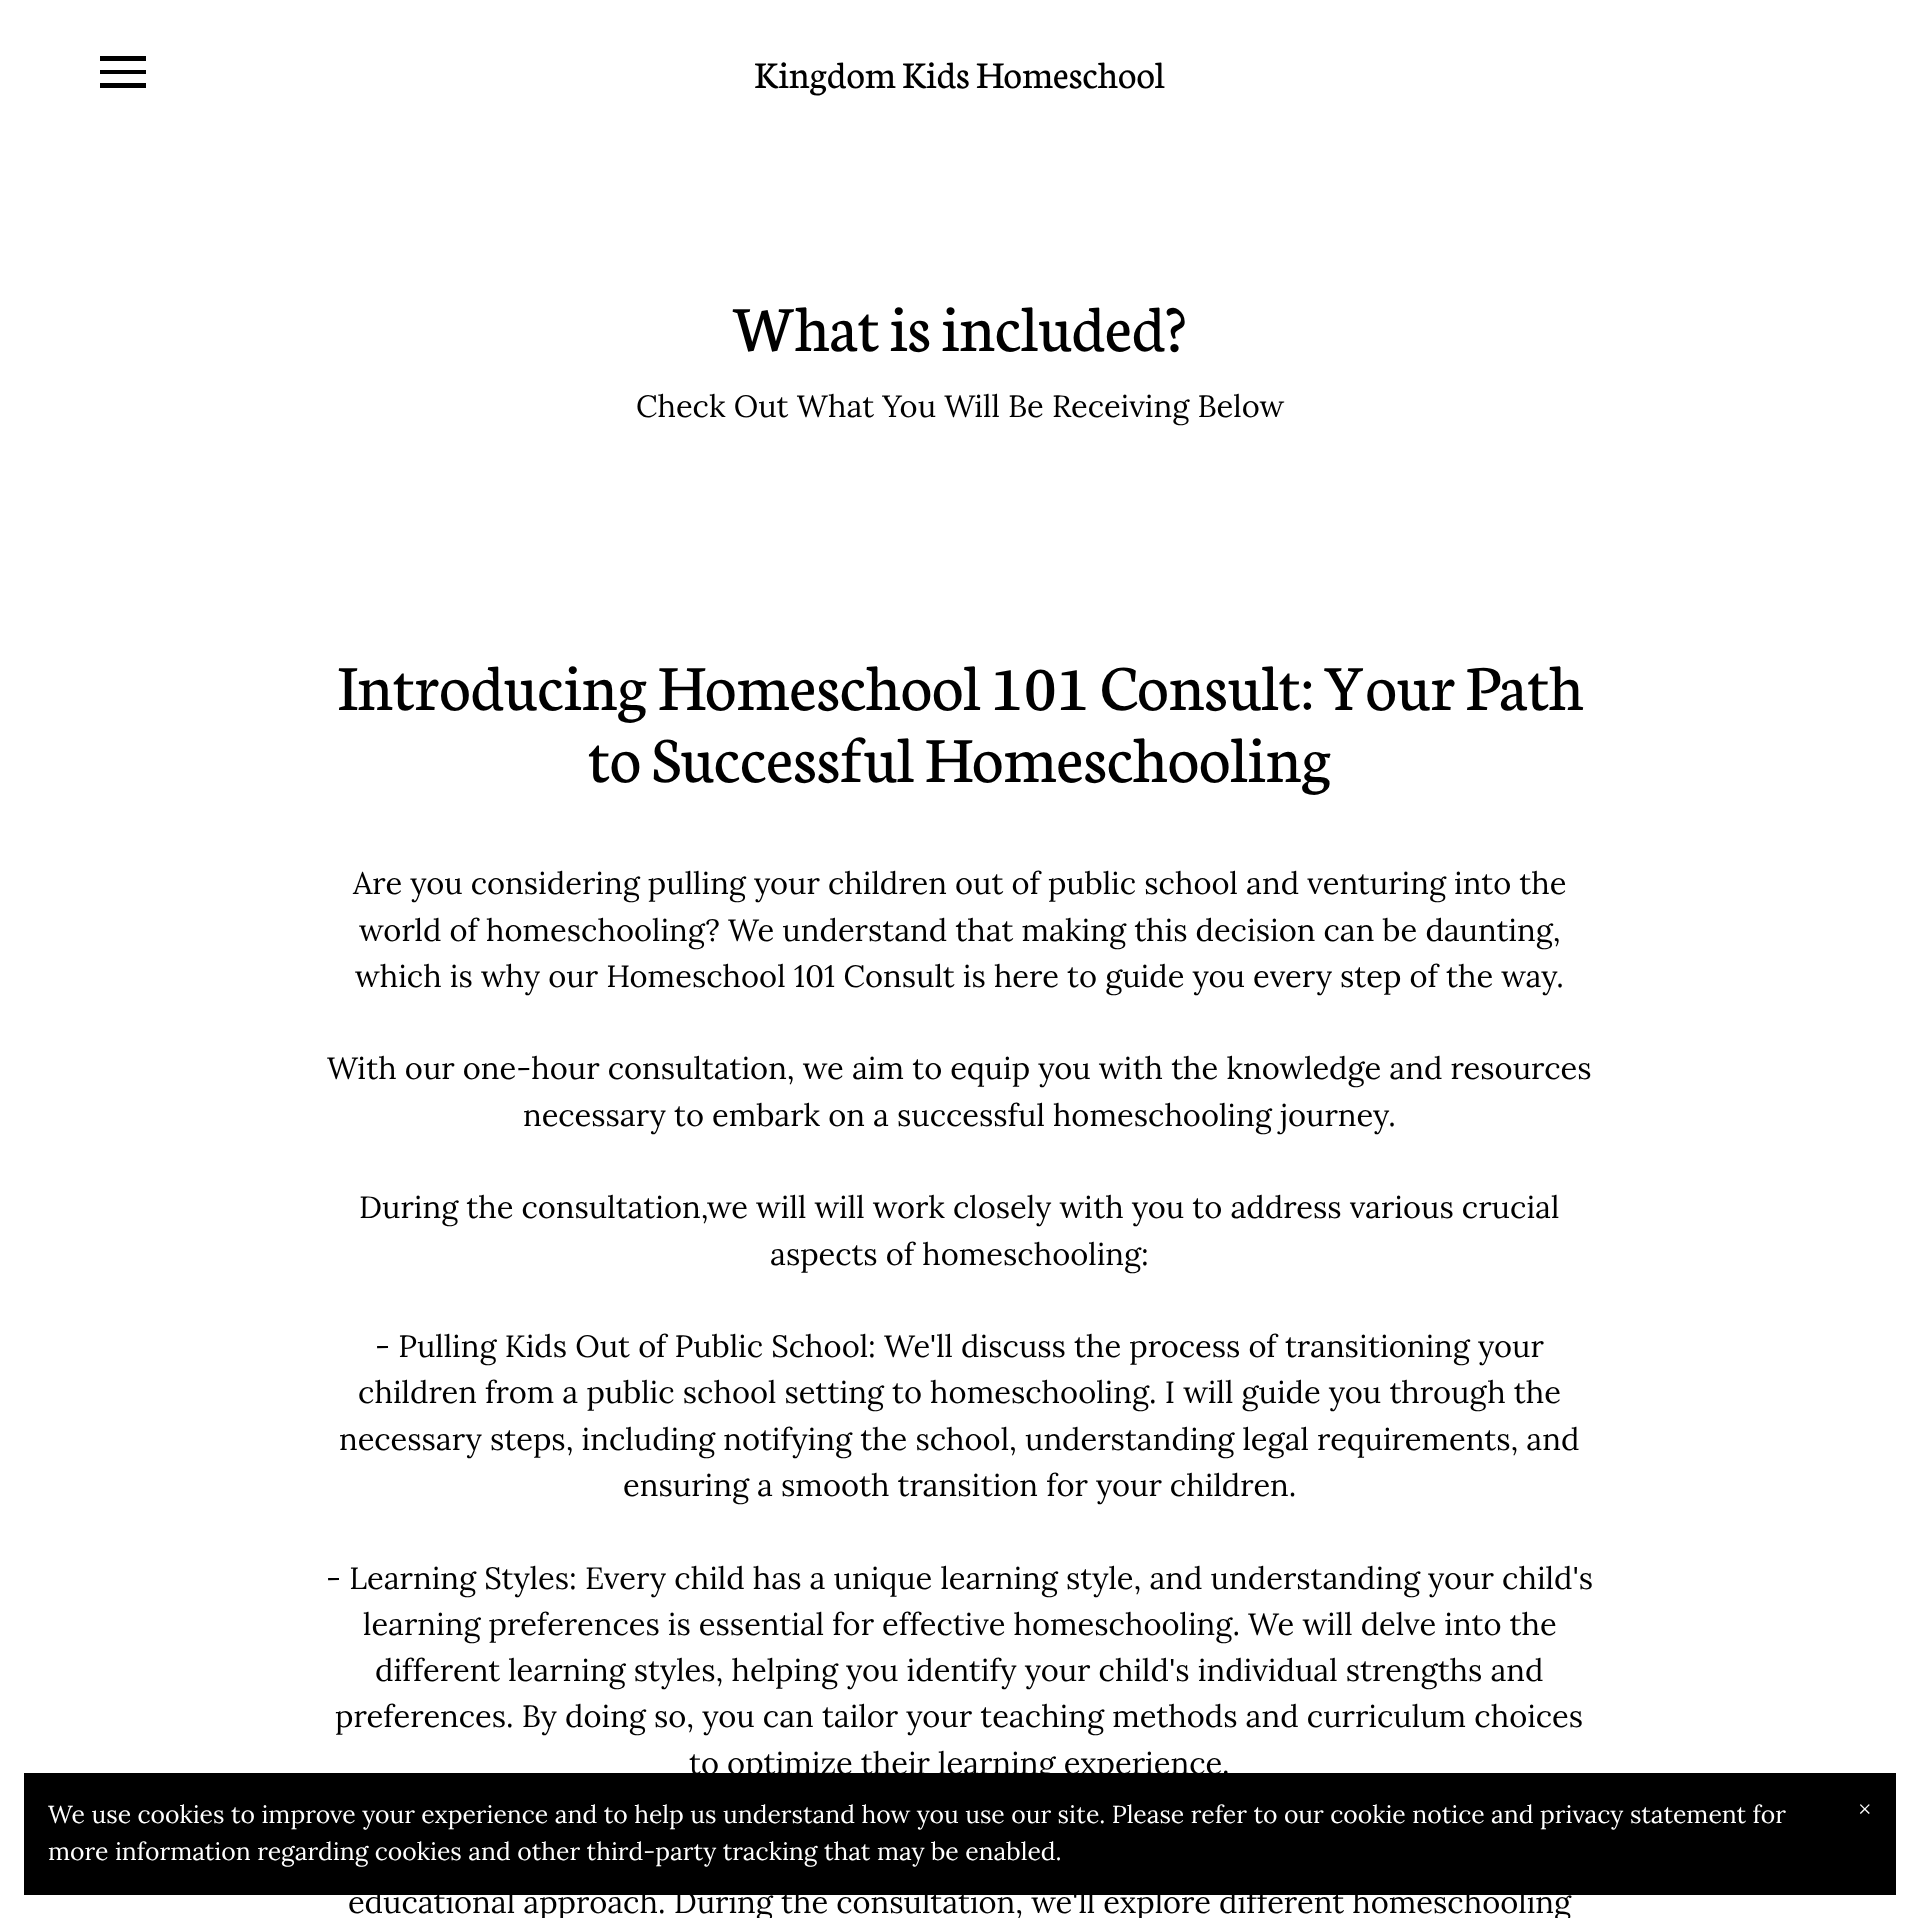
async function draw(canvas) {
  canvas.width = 1920
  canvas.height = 1918
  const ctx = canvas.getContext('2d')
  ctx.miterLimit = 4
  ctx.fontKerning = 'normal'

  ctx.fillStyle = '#fff'
  ctx.fillRect(0, 0, 1920, 1918)
  ctx.fillStyle = '#000'
  ctx.beginPath()
  ctx.moveTo(146, 61)
  ctx.lineTo(100, 61)
  ctx.lineTo(100, 56)
  ctx.lineTo(146, 56)
  ctx.closePath()
  ctx.moveTo(146, 74)
  ctx.lineTo(100, 74)
  ctx.lineTo(100, 70)
  ctx.lineTo(146, 70)
  ctx.closePath()
  ctx.moveTo(100, 88)
  ctx.lineTo(146, 88)
  ctx.lineTo(146, 83)
  ctx.lineTo(100, 83)
  ctx.closePath()
  ctx.fill()
  ctx.font = '40.25px Neuton'
  ctx.fillText('Kingdom Kids Homeschool', 754, 88)
  ctx.font = '68.8px Neuton'
  ctx.fillText('What is included?', 733, 351)
  ctx.font = '30.85px Lora'
  ctx.fillText('Check Out What You Will Be Receiving Below', 636, 417)
  ctx.font = '68.8px Neuton'
  ctx.fillText('Introducing Homeschool 101 Consult: Your Path', 337, 710)
  ctx.fillText('to Successful Homeschooling', 588, 782)
  ctx.font = '30.85px Lora'
  ctx.fillText('Are you considering pulling your children out of public school and venturing into the', 353, 894)
  ctx.fillText('world of homeschooling? We understand that making this decision can be daunting,', 359, 941)
  ctx.fillText('which is why our Homeschool 101 Consult is here to guide you every step of the way.', 355, 987)
  ctx.fillText('With our one-hour consultation, we aim to equip you with the knowledge and resources', 327, 1079)
  ctx.fillText('necessary to embark on a successful homeschooling journey.', 523, 1126)
  ctx.fillText('During the consultation,we will will work closely with you to address various crucial', 359, 1218)
  ctx.fillText('aspects of homeschooling:', 770, 1265)
  ctx.fillText('- Pulling Kids Out of Public School: We\'ll discuss the process of transitioning your', 375, 1357)
  ctx.fillText('children from a public school setting to homeschooling. I will guide you through the', 358, 1403)
  ctx.fillText('necessary steps, including notifying the school, understanding legal requirements, and', 339, 1450)
  ctx.fillText('ensuring a smooth transition for your children.', 623, 1496)
  ctx.fillText('- Learning Styles: Every child has a unique learning style, and understanding your child\'s', 326, 1589)
  ctx.fillText('learning preferences is essential for effective homeschooling. We will delve into the', 363, 1635)
  ctx.fillText('different learning styles, helping you identify your child\'s individual strengths and', 375, 1681)
  ctx.fillText('preferences. By doing so, you can tailor your teaching methods and curriculum choices', 335, 1727)
  ctx.fillText('to optimize their learning experience.', 689, 1774)
  ctx.fillText('educational approach. During the consultation, we\'ll explore different homeschooling', 348, 1913)
  ctx.fillRect(24, 1773, 1872, 122)
  ctx.font = '24.7px Lora'
  ctx.fillStyle = '#fff'
  ctx.fillText('We use cookies to improve your experience and to help us understand how you use our site. Please refer to our cookie notice and privacy statement for', 48, 1823)
  ctx.fillText('more information regarding cookies and other third-party tracking that may be enabled.', 48, 1860)
  ctx.font = '24px Liberation Serif'
  ctx.fillText('×', 1858, 1817)
}

draw(document.querySelector('canvas'))
